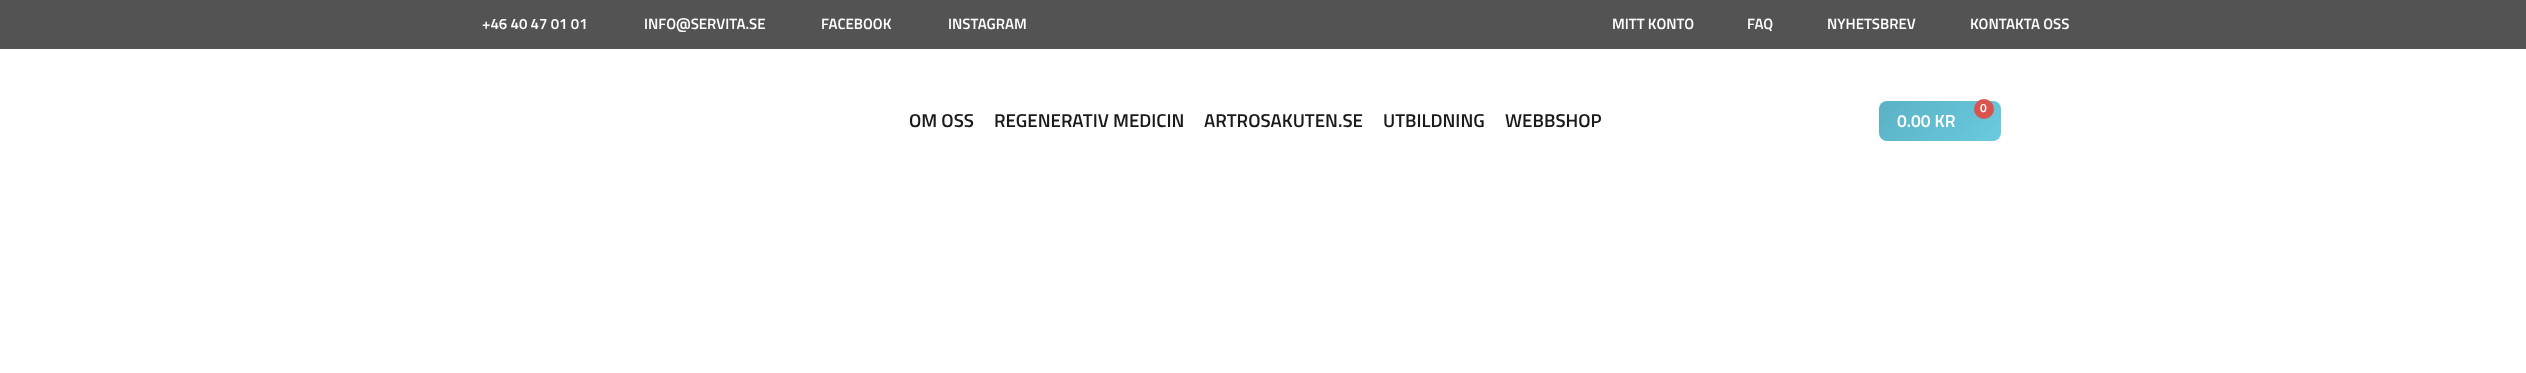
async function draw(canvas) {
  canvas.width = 2526
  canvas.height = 373
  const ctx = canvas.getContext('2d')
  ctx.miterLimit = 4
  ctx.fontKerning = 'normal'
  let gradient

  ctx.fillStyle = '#fff'
  ctx.fillRect(0, 0, 2526, 373)
  ctx.fillStyle = '#535353'
  ctx.fillRect(0, 0, 2526, 49)
  ctx.font = '600 15px Titillium Web'
  ctx.fillStyle = '#fff'
  ctx.fillText('+46 40 47 01 01', 482, 29)
  ctx.fillText('INFO@SERVITA.SE', 644, 29)
  ctx.fillText('FACEBOOK', 821, 29)
  ctx.fillText('INSTAGRAM', 948, 29)
  ctx.fillText('MITT KONTO', 1612, 29)
  ctx.fillText('FAQ', 1747, 29)
  ctx.fillText('NYHETSBREV', 1827, 29)
  ctx.fillText('KONTAKTA OSS', 1970, 29)
  ctx.font = '600 18.75px Titillium Web'
  ctx.fillStyle = '#1b1a1a'
  ctx.fillText('OM OSS', 909, 127)
  ctx.fillText('REGENERATIV MEDICIN', 994, 127)
  ctx.fillText('ARTROSAKUTEN.SE', 1204, 127)
  ctx.fillText('UTBILDNING', 1383, 127)
  ctx.fillText('WEBBSHOP', 1505, 127)
  gradient = ctx.createLinearGradient(1899, 81, 1981, 162)
  gradient.addColorStop(0, '#5bb1c5')
  gradient.addColorStop(1, '#6acbdf')
  ctx.fillStyle = gradient
  ctx.beginPath()
  ctx.roundRect(1879, 101, 122, 40, 8)
  ctx.fill()
  ctx.fillStyle = '#d9534f'
  ctx.beginPath()
  ctx.arc(1984, 109, 10, 0, 2 * Math.PI)
  ctx.fill()
  ctx.font = '600 12px Titillium Web'
  ctx.fillStyle = '#fff'
  ctx.fillText('0', 1980, 112)
  ctx.font = '600 17.5px Titillium Web'
  ctx.fillText('0.00 KR', 1897, 127)
}

draw(document.querySelector('canvas'))
